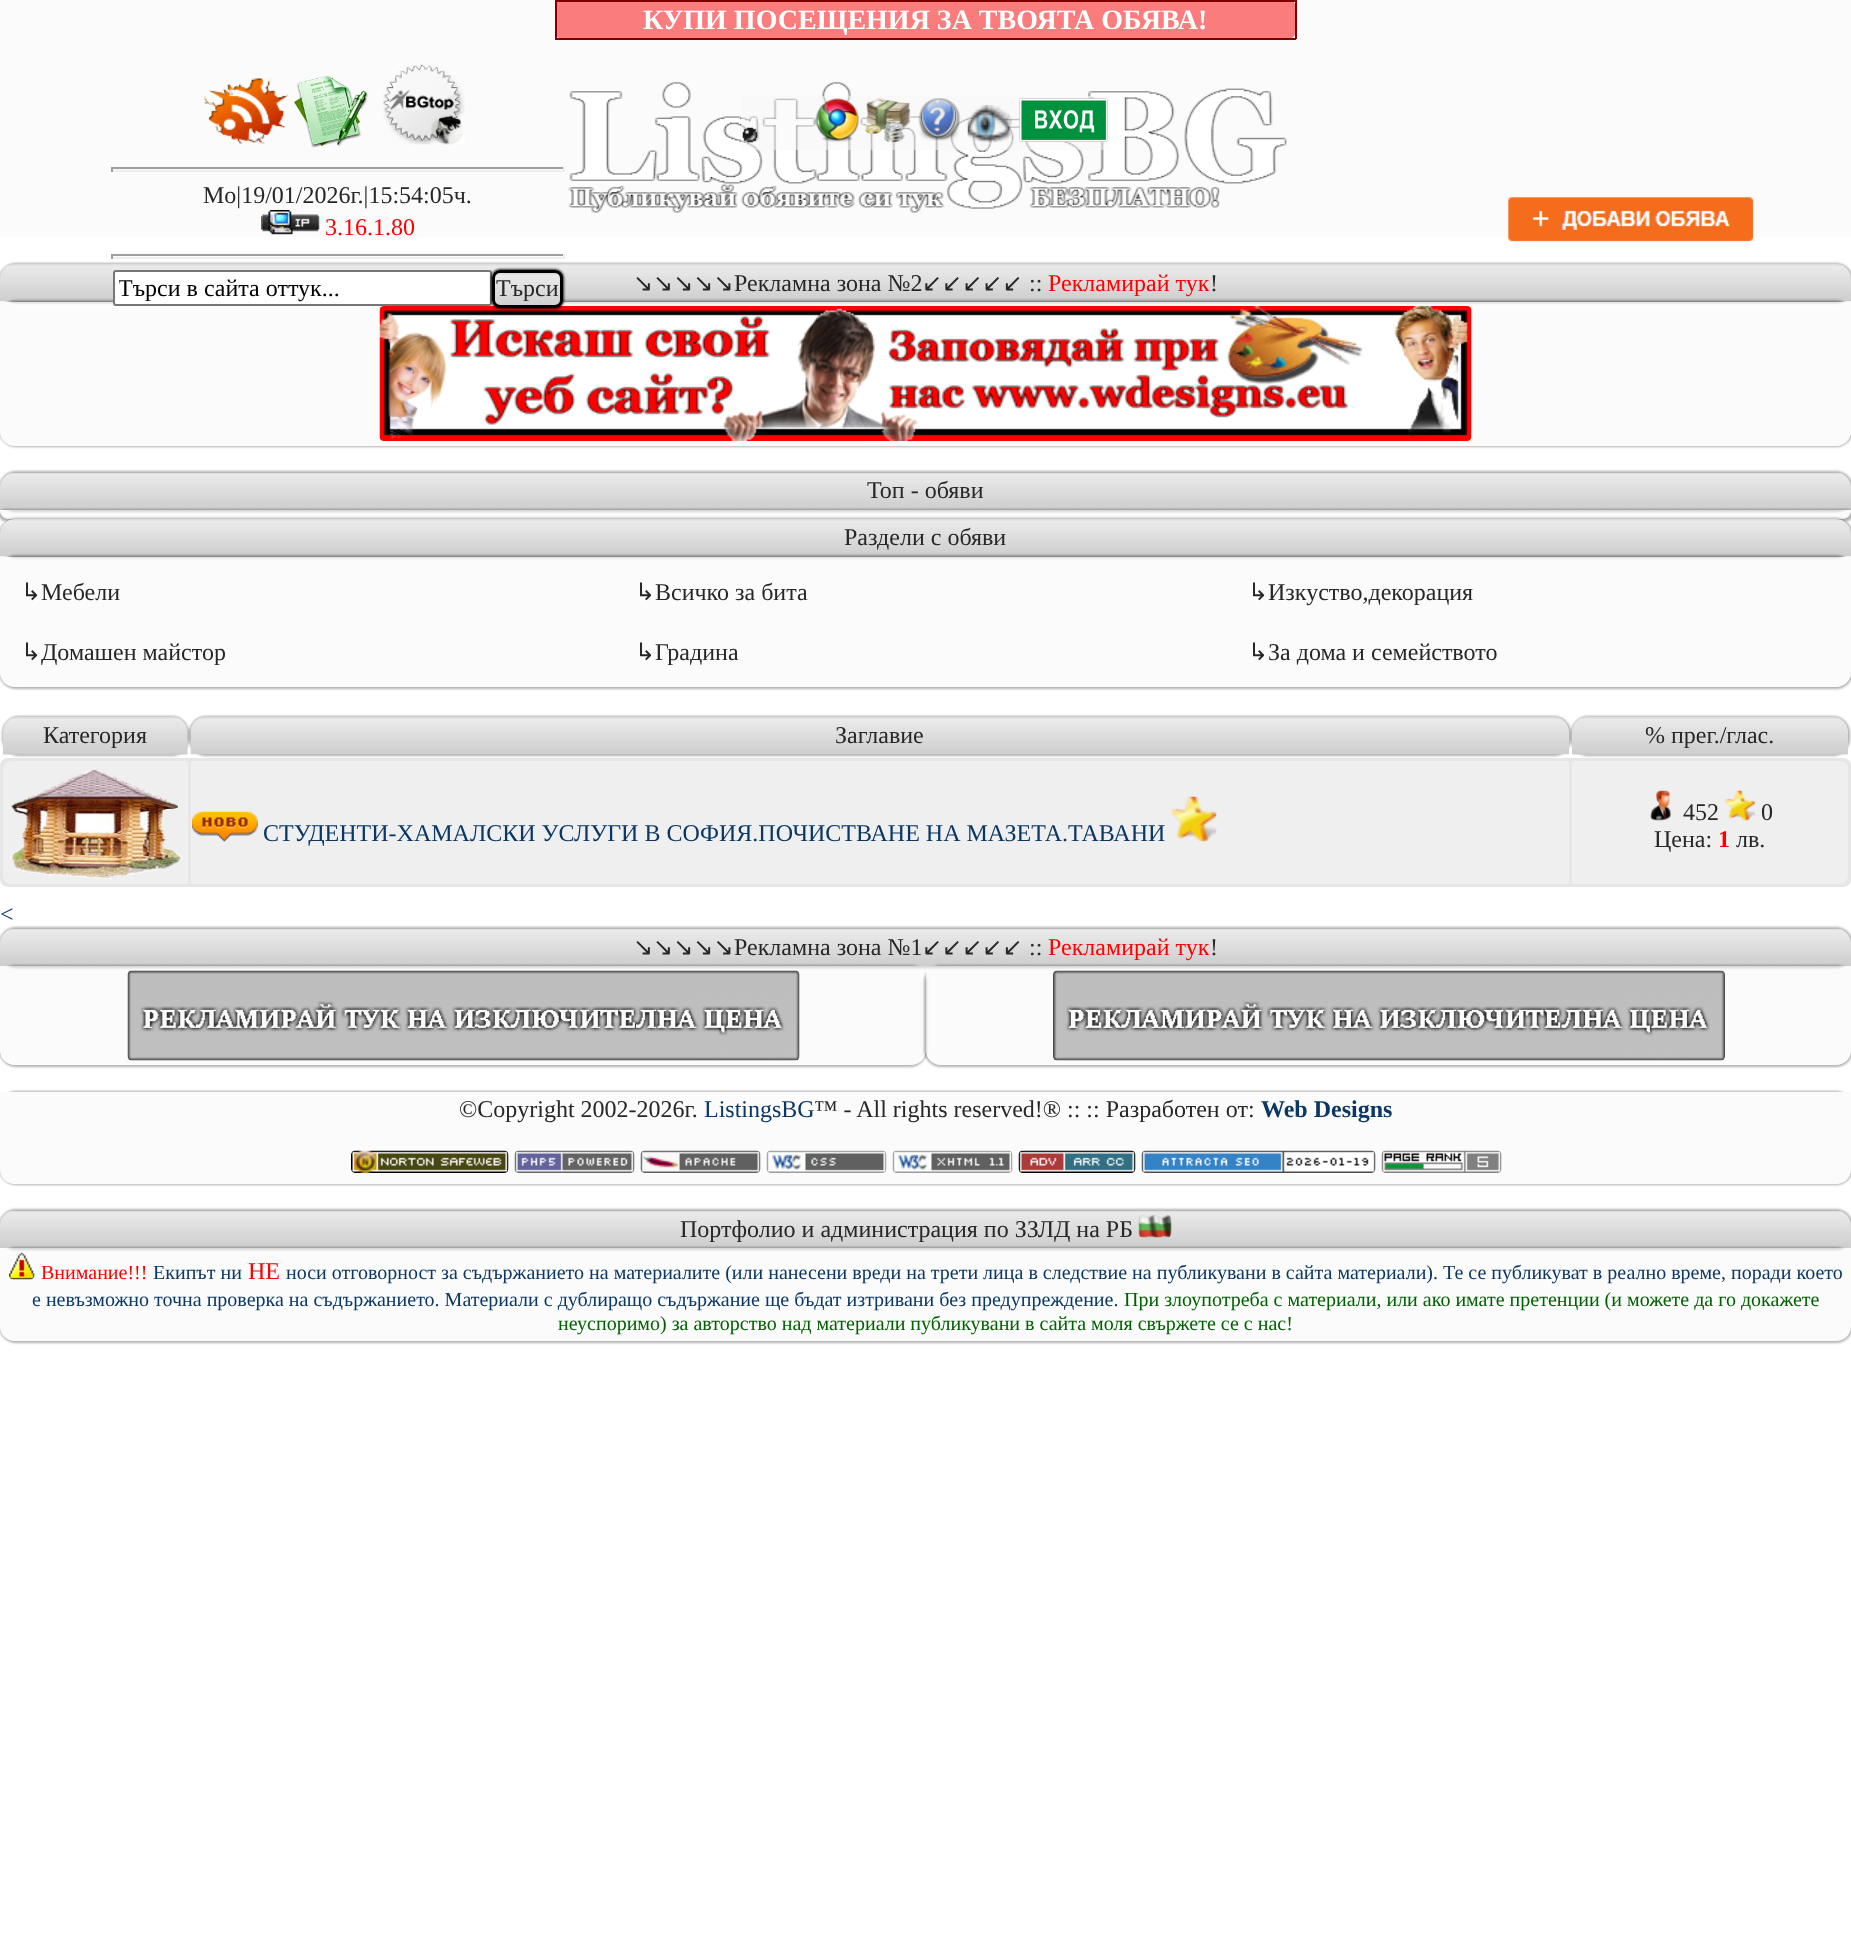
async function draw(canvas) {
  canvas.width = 1851
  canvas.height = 1933
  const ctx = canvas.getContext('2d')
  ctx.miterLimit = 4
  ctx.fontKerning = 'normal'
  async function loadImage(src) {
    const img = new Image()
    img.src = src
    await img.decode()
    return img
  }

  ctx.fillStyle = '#fff'
  ctx.fillRect(0, 0, 1851, 1933)
  ctx.fillStyle = '#fbfbfb'
  ctx.fillRect(0, 0, 1851, 237)
  ctx.fillStyle = '#f00'
  ctx.beginPath()
  ctx.roundRect(555, 0, 741, 39, 8)
  ctx.fill()
  ctx.fillStyle = '#f7f7f780'
  ctx.fillRect(557, 2, 738, 36)
  ctx.fillStyle = '#800000'
  ctx.fillRect(555, 0, 741, 2)
  ctx.fillRect(1295, 0, 2, 39)
  ctx.fillRect(555, 38, 741, 2)
  ctx.fillRect(555, 0, 2, 39)
  ctx.font = 'bold 28px Liberation Serif'
  ctx.fillStyle = '#fff'
  ctx.fillText('КУПИ ПОСЕЩЕНИЯ ЗА ТВОЯТА ОБЯВА!', 643, 29)
  ctx.drawImage(await loadImage('image0.png'), 204, 78, 84, 67)
  ctx.drawImage(await loadImage('image1.png'), 294, 75, 74, 73)
  ctx.drawImage(await loadImage('image2.png'), 383, 64, 82, 81)
  ctx.fillStyle = '#9f9f9f'
  ctx.fillRect(111, 167, 453, 2)
  ctx.fillStyle = '#eee'
  ctx.fillRect(563, 167, 2, 5)
  ctx.fillRect(111, 170, 453, 2)
  ctx.fillStyle = '#9f9f9f'
  ctx.fillRect(111, 167, 2, 5)
  ctx.font = '24px Liberation Serif'
  ctx.fillStyle = '#272727'
  ctx.fillText('Mo|19/01/2026г.|15:54:05ч.', 203, 203)
  ctx.drawImage(await loadImage('image3.png'), 261, 210, 59, 25)
  ctx.fillStyle = '#f00'
  ctx.fillText('3.16.1.80', 325, 235)
  ctx.fillStyle = '#9f9f9f'
  ctx.fillRect(111, 254, 453, 2)
  ctx.fillStyle = '#eee'
  ctx.fillRect(563, 254, 2, 5)
  ctx.fillRect(111, 257, 453, 2)
  ctx.fillStyle = '#9f9f9f'
  ctx.fillRect(111, 254, 2, 5)
  ctx.fillStyle = '#0000004d'
  ctx.filter = 'blur(1px)'
  ctx.beginPath()
  ctx.roundRect(-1, 263, 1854, 40, 17)
  ctx.fill()
  ctx.filter = 'none'
  ctx.drawImage(await loadImage('image13.png'), 0, 264, 1851, 38)
  ctx.save()
  ctx.beginPath()
  ctx.moveTo(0, 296)
  ctx.lineTo(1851, 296)
  ctx.lineTo(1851, 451)
  ctx.lineTo(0, 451)
  ctx.closePath()
  ctx.moveTo(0, 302)
  ctx.lineTo(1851, 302)
  ctx.lineTo(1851, 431)
  ctx.bezierCurveTo(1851, 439.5, 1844.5, 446, 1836, 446)
  ctx.lineTo(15, 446)
  ctx.bezierCurveTo(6.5, 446, 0, 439.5, 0, 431)
  ctx.closePath()
  ctx.clip('evenodd')
  ctx.filter = 'blur(1px)'
  ctx.beginPath()
  ctx.roundRect(-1, 300, 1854, 147, 17)
  ctx.fill()
  ctx.filter = 'none'
  ctx.restore()
  ctx.fillStyle = '#f7f7f780'
  ctx.beginPath()
  ctx.roundRect(0, 302, 1851, 144, [0, 0, 15, 15])
  ctx.fill()
  ctx.fillStyle = '#fff'
  ctx.beginPath()
  ctx.roundRect(114, 271, 377, 34, 2)
  ctx.fill()
  ctx.strokeStyle = '#767676'
  ctx.lineWidth = 2
  ctx.stroke()
  ctx.save()
  ctx.beginPath()
  ctx.rect(119, 275, 367, 27)
  ctx.clip()
  ctx.fillStyle = '#000'
  ctx.fillText('Търси в сайта оттук...', 118, 296)
  ctx.restore()
  ctx.drawImage(await loadImage('image14.png'), 379, 306, 1093, 135)
  ctx.fillStyle = '#000000cc'
  ctx.filter = 'blur(1px)'
  ctx.beginPath()
  ctx.roundRect(491, 269, 73, 40, 9)
  ctx.fill()
  ctx.filter = 'none'
  ctx.drawImage(await loadImage('image4.png'), 492, 270, 71, 38)
  ctx.beginPath()
  ctx.roundRect(493.5, 271.5, 68, 35, 6.5)
  ctx.strokeStyle = '#000'
  ctx.lineWidth = 3
  ctx.stroke()
  ctx.fillStyle = '#272727'
  ctx.fillText('Търси', 496, 296)
  ctx.drawImage(await loadImage('image5.png'), 1508, 197, 246, 45)
  ctx.drawImage(await loadImage('image6.png'), 568, 82, 719, 131)
  ctx.fillStyle = '#f7f7f780'
  ctx.fillRect(741, 96, 369, 54)
  ctx.drawImage(await loadImage('image7.png'), 742, 127, 16, 16)
  ctx.drawImage(await loadImage('image8.png'), 815, 98, 44, 44)
  ctx.drawImage(await loadImage('image9.png'), 865, 97, 46, 46)
  ctx.drawImage(await loadImage('image10.png'), 918, 98, 43, 43)
  ctx.drawImage(await loadImage('image11.png'), 967, 105, 46, 38)
  ctx.drawImage(await loadImage('image12.png'), 1019, 98, 89, 44)
  ctx.font = '24px DejaVu Sans'
  ctx.fillStyle = '#272727'
  ctx.fillText('↘↘↘↘↘', 633, 291)
  ctx.font = '24px Liberation Serif'
  ctx.fillText('Рекламна зона №2', 734, 291)
  ctx.font = '24px DejaVu Sans'
  ctx.fillText('↙↙↙↙↙', 922, 291)
  ctx.font = '24px Liberation Serif'
  ctx.fillText('::', 1029, 291)
  ctx.fillStyle = '#f00'
  ctx.fillText('Рекламирай тук', 1048, 291)
  ctx.fillStyle = '#272727'
  ctx.fillText('!', 1210, 291)
  ctx.fillStyle = '#0000004d'
  ctx.filter = 'blur(1px)'
  ctx.beginPath()
  ctx.roundRect(-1, 471, 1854, 41, 17)
  ctx.fill()
  ctx.filter = 'none'
  ctx.drawImage(await loadImage('image15.png'), 0, 473, 1851, 37)
  ctx.fillStyle = '#272727'
  ctx.fillText('Топ - обяви', 867, 498)
  ctx.save()
  ctx.beginPath()
  ctx.moveTo(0, 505)
  ctx.lineTo(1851, 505)
  ctx.lineTo(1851, 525)
  ctx.lineTo(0, 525)
  ctx.closePath()
  ctx.moveTo(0, 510)
  ctx.lineTo(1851, 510)
  ctx.bezierCurveTo(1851, 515, 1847, 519, 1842, 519)
  ctx.lineTo(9, 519)
  ctx.bezierCurveTo(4, 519, 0, 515, 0, 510)
  ctx.closePath()
  ctx.clip('evenodd')
  ctx.fillStyle = '#0000004d'
  ctx.filter = 'blur(1px)'
  ctx.beginPath()
  ctx.roundRect(-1, 509, 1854, 12, 11)
  ctx.fill()
  ctx.filter = 'none'
  ctx.restore()
  ctx.fillStyle = '#f7f7f780'
  ctx.beginPath()
  ctx.roundRect(0, 510, 1851, 9, [0, 0, 9, 9])
  ctx.fill()
  ctx.fillStyle = '#0000004d'
  ctx.filter = 'blur(1px)'
  ctx.beginPath()
  ctx.roundRect(-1, 518, 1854, 40, 17)
  ctx.fill()
  ctx.filter = 'none'
  ctx.drawImage(await loadImage('image16.png'), 0, 519, 1851, 38)
  ctx.fillStyle = '#272727'
  ctx.fillText('Раздели с обяви', 844, 545)
  ctx.save()
  ctx.beginPath()
  ctx.moveTo(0, 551)
  ctx.lineTo(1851, 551)
  ctx.lineTo(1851, 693)
  ctx.lineTo(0, 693)
  ctx.closePath()
  ctx.moveTo(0, 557)
  ctx.lineTo(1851, 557)
  ctx.lineTo(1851, 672)
  ctx.bezierCurveTo(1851, 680.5, 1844.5, 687, 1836, 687)
  ctx.lineTo(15, 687)
  ctx.bezierCurveTo(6.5, 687, 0, 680.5, 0, 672)
  ctx.closePath()
  ctx.clip('evenodd')
  ctx.fillStyle = '#0000004d'
  ctx.filter = 'blur(1px)'
  ctx.beginPath()
  ctx.roundRect(-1, 555, 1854, 134, 17)
  ctx.fill()
  ctx.filter = 'none'
  ctx.restore()
  ctx.fillStyle = '#f7f7f780'
  ctx.beginPath()
  ctx.roundRect(0, 557, 1851, 130, [0, 0, 15, 15])
  ctx.fill()
  ctx.font = '24px DejaVu Sans'
  ctx.fillStyle = '#272727'
  ctx.fillText('↳', 21, 600)
  ctx.font = '24px Liberation Serif'
  ctx.fillText('Мебели', 41, 600)
  ctx.font = '24px DejaVu Sans'
  ctx.fillText('↳', 635, 600)
  ctx.font = '24px Liberation Serif'
  ctx.fillText('Всичко за бита', 655, 600)
  ctx.font = '24px DejaVu Sans'
  ctx.fillText('↳', 1248, 600)
  ctx.font = '24px Liberation Serif'
  ctx.fillText('Изкуство,декорация', 1268, 600)
  ctx.font = '24px DejaVu Sans'
  ctx.fillText('↳', 21, 660)
  ctx.font = '24px Liberation Serif'
  ctx.fillText('Домашен майстор', 41, 660)
  ctx.font = '24px DejaVu Sans'
  ctx.fillText('↳', 635, 660)
  ctx.font = '24px Liberation Serif'
  ctx.fillText('Градина', 655, 660)
  ctx.font = '24px DejaVu Sans'
  ctx.fillText('↳', 1248, 660)
  ctx.font = '24px Liberation Serif'
  ctx.fillText('За дома и семейството', 1268, 660)
  ctx.fillStyle = '#0000004d'
  ctx.filter = 'blur(1px)'
  ctx.beginPath()
  ctx.roundRect(2, 716, 187, 40, 17)
  ctx.fill()
  ctx.filter = 'none'
  ctx.drawImage(await loadImage('image17.png'), 3, 717, 185, 38)
  ctx.fillStyle = '#272727'
  ctx.fillText('Категория', 43, 743)
  ctx.fillStyle = '#0000004d'
  ctx.filter = 'blur(1px)'
  ctx.beginPath()
  ctx.roundRect(189, 716, 1382, 40, 17)
  ctx.fill()
  ctx.filter = 'none'
  ctx.drawImage(await loadImage('image18.png'), 190, 717, 1379, 38)
  ctx.fillStyle = '#272727'
  ctx.fillText('Заглавие', 835, 743)
  ctx.fillStyle = '#0000004d'
  ctx.filter = 'blur(1px)'
  ctx.beginPath()
  ctx.roundRect(1571, 716, 279, 40, 17)
  ctx.fill()
  ctx.filter = 'none'
  ctx.drawImage(await loadImage('image19.png'), 1572, 717, 276, 38)
  ctx.fillStyle = '#272727'
  ctx.fillText('% прег./глас.', 1645, 743)
  ctx.fillStyle = '#e6e6e6'
  ctx.beginPath()
  ctx.roundRect(0, 758, 1851, 129, 8)
  ctx.fill()
  ctx.fillStyle = '#efefef'
  ctx.beginPath()
  ctx.roundRect(3, 761, 185, 123, [8, 1.5, 1.5, 8])
  ctx.fill()
  ctx.drawImage(await loadImage('image20.png'), 10, 769, 172, 110)
  ctx.beginPath()
  ctx.roundRect(191, 761, 1378, 123, 1.5)
  ctx.fill()
  ctx.drawImage(await loadImage('image21.png'), 192, 811, 66, 31)
  ctx.fillStyle = '#0a3764'
  ctx.fillText('СТУДЕНТИ-ХАМАЛСКИ УСЛУГИ В СОФИЯ.ПОЧИСТВАНЕ НА МАЗЕТА.ТАВАНИ', 263, 841)
  ctx.drawImage(await loadImage('image22.png'), 1171, 796, 46, 46)
  ctx.fillStyle = '#efefef'
  ctx.beginPath()
  ctx.roundRect(1572, 761, 276, 123, [1.5, 8, 8, 1.5])
  ctx.fill()
  ctx.drawImage(await loadImage('image23.png'), 1650, 790, 21, 31)
  ctx.fillStyle = '#272727'
  ctx.fillText('452', 1683, 820)
  ctx.drawImage(await loadImage('image24.png'), 1725, 790, 30, 31)
  ctx.fillText('0', 1761, 820)
  ctx.fillText('Цена:', 1654, 847)
  ctx.font = 'bold 24px Liberation Serif'
  ctx.fillStyle = '#f00'
  ctx.fillText('1', 1718, 847)
  ctx.font = '24px Liberation Serif'
  ctx.fillStyle = '#272727'
  ctx.fillText('лв.', 1736, 847)
  ctx.fillStyle = '#0a3764'
  ctx.fillText('<', 0, 922)
  ctx.fillStyle = '#0000004d'
  ctx.filter = 'blur(1px)'
  ctx.beginPath()
  ctx.roundRect(-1, 927, 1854, 41, 17)
  ctx.fill()
  ctx.filter = 'none'
  ctx.drawImage(await loadImage('image25.png'), 0, 929, 1851, 37)
  ctx.font = '24px DejaVu Sans'
  ctx.fillStyle = '#272727'
  ctx.fillText('↘↘↘↘↘', 633, 955)
  ctx.font = '24px Liberation Serif'
  ctx.fillText('Рекламна зона №1', 734, 955)
  ctx.font = '24px DejaVu Sans'
  ctx.fillText('↙↙↙↙↙', 922, 955)
  ctx.font = '24px Liberation Serif'
  ctx.fillText('::', 1029, 955)
  ctx.fillStyle = '#f00'
  ctx.fillText('Рекламирай тук', 1048, 955)
  ctx.fillStyle = '#272727'
  ctx.fillText('!', 1210, 955)
  ctx.save()
  ctx.beginPath()
  ctx.moveTo(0, 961)
  ctx.lineTo(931, 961)
  ctx.lineTo(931, 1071)
  ctx.lineTo(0, 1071)
  ctx.closePath()
  ctx.moveTo(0, 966)
  ctx.lineTo(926, 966)
  ctx.lineTo(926, 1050)
  ctx.bezierCurveTo(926, 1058.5, 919.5, 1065, 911, 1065)
  ctx.lineTo(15, 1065)
  ctx.bezierCurveTo(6.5, 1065, 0, 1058.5, 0, 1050)
  ctx.closePath()
  ctx.clip('evenodd')
  ctx.fillStyle = '#0000004d'
  ctx.filter = 'blur(1px)'
  ctx.beginPath()
  ctx.roundRect(-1, 965, 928, 102, 17)
  ctx.fill()
  ctx.filter = 'none'
  ctx.restore()
  ctx.fillStyle = '#f7f7f780'
  ctx.beginPath()
  ctx.roundRect(0, 966, 926, 99, [0, 0, 15, 15])
  ctx.fill()
  ctx.drawImage(await loadImage('image26.png'), 127, 970, 673, 91)
  ctx.save()
  ctx.beginPath()
  ctx.moveTo(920, 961)
  ctx.lineTo(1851, 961)
  ctx.lineTo(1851, 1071)
  ctx.lineTo(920, 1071)
  ctx.closePath()
  ctx.moveTo(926, 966)
  ctx.lineTo(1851, 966)
  ctx.lineTo(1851, 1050)
  ctx.bezierCurveTo(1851, 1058.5, 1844.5, 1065, 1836, 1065)
  ctx.lineTo(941, 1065)
  ctx.bezierCurveTo(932.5, 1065, 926, 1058.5, 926, 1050)
  ctx.closePath()
  ctx.clip('evenodd')
  ctx.fillStyle = '#0000004d'
  ctx.filter = 'blur(1px)'
  ctx.beginPath()
  ctx.roundRect(924, 965, 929, 102, 17)
  ctx.fill()
  ctx.filter = 'none'
  ctx.restore()
  ctx.beginPath()
  ctx.roundRect(926, 966, 925, 99, [0, 0, 15, 15])
  ctx.fill()
  ctx.drawImage(await loadImage('image27.png'), 1053, 970, 672, 91)
  ctx.save()
  ctx.beginPath()
  ctx.moveTo(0, 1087)
  ctx.lineTo(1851, 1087)
  ctx.lineTo(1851, 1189)
  ctx.lineTo(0, 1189)
  ctx.closePath()
  ctx.moveTo(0, 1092)
  ctx.lineTo(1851, 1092)
  ctx.lineTo(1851, 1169)
  ctx.bezierCurveTo(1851, 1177.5, 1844.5, 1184, 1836, 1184)
  ctx.lineTo(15, 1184)
  ctx.bezierCurveTo(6.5, 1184, 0, 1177.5, 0, 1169)
  ctx.closePath()
  ctx.clip('evenodd')
  ctx.fillStyle = '#0000004d'
  ctx.filter = 'blur(1px)'
  ctx.beginPath()
  ctx.roundRect(-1, 1091, 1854, 94, 17)
  ctx.fill()
  ctx.filter = 'none'
  ctx.restore()
  ctx.beginPath()
  ctx.roundRect(0, 1092, 1851, 92, [0, 0, 15, 15])
  ctx.fill()
  ctx.fillStyle = '#272727'
  ctx.fillText('©Copyright 2002-2026г.', 459, 1117)
  ctx.fillStyle = '#0a3764'
  ctx.fillText('ListingsBG', 704, 1117)
  ctx.fillStyle = '#272727'
  ctx.fillText('™ - All rights reserved!® :: :: Разработен от:', 814, 1117)
  ctx.font = 'bold 24px Liberation Serif'
  ctx.fillStyle = '#0a3764'
  ctx.fillText('Web Designs', 1261, 1117)
  ctx.drawImage(await loadImage('image28.png'), 351, 1150, 158, 23)
  ctx.drawImage(await loadImage('image29.png'), 514, 1150, 121, 23)
  ctx.drawImage(await loadImage('image30.png'), 640, 1150, 121, 23)
  ctx.drawImage(await loadImage('image31.png'), 766, 1150, 121, 23)
  ctx.drawImage(await loadImage('image32.png'), 892, 1150, 121, 23)
  ctx.drawImage(await loadImage('image33.png'), 1018, 1150, 118, 23)
  ctx.drawImage(await loadImage('image34.png'), 1141, 1150, 235, 23)
  ctx.drawImage(await loadImage('image35.png'), 1381, 1150, 121, 23)
  ctx.fillStyle = '#0000004d'
  ctx.filter = 'blur(1px)'
  ctx.beginPath()
  ctx.roundRect(-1, 1209, 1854, 41, 17)
  ctx.fill()
  ctx.filter = 'none'
  ctx.drawImage(await loadImage('image15.png'), 0, 1211, 1851, 37)
  ctx.font = '24px Liberation Serif'
  ctx.fillStyle = '#272727'
  ctx.fillText('Портфолио и администрация по ЗЗЛД на РБ', 680, 1237)
  ctx.drawImage(await loadImage('image36.png'), 1138, 1215, 34, 23)
  ctx.save()
  ctx.beginPath()
  ctx.moveTo(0, 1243)
  ctx.lineTo(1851, 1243)
  ctx.lineTo(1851, 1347)
  ctx.lineTo(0, 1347)
  ctx.closePath()
  ctx.moveTo(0, 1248)
  ctx.lineTo(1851, 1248)
  ctx.lineTo(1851, 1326)
  ctx.bezierCurveTo(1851, 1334.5, 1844.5, 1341, 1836, 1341)
  ctx.lineTo(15, 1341)
  ctx.bezierCurveTo(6.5, 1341, 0, 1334.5, 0, 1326)
  ctx.closePath()
  ctx.clip('evenodd')
  ctx.fillStyle = '#0000004d'
  ctx.filter = 'blur(1px)'
  ctx.beginPath()
  ctx.roundRect(-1, 1247, 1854, 96, 17)
  ctx.fill()
  ctx.filter = 'none'
  ctx.restore()
  ctx.fillStyle = '#f7f7f780'
  ctx.beginPath()
  ctx.roundRect(0, 1248, 1851, 93, [0, 0, 15, 15])
  ctx.fill()
  ctx.drawImage(await loadImage('image37.png'), 9, 1252, 26, 28)
  ctx.font = '20px Liberation Serif'
  ctx.fillStyle = '#f00'
  ctx.fillText('Внимание!!!', 41, 1279)
  ctx.fillStyle = '#0a3764'
  ctx.fillText('Екипът ни', 153, 1279)
  ctx.font = '24px Liberation Serif'
  ctx.fillStyle = '#f00'
  ctx.fillText('НЕ', 248, 1279)
  ctx.font = '20px Liberation Serif'
  ctx.fillStyle = '#0a3764'
  ctx.fillText('носи отговорност за съдържанието на материалите (или нанесени вреди на трети лица в следствие на публикувани в сайта материали). Те се публикуват в реално време, поради което', 286, 1279)
  ctx.fillText('е невъзможно точна проверка на съдържанието. Материали с дублиращо съдържание ще бъдат изтривани без предупреждение.', 32, 1306)
  ctx.fillStyle = '#006000'
  ctx.fillText('При злоупотреба с материали, или ако имате претенции (и можете да го докажете', 1124, 1306)
  ctx.fillText('неуспоримо) за авторство над материали публикувани в сайта моля свържете се с нас!', 558, 1330)
}

draw(document.querySelector('canvas'))
